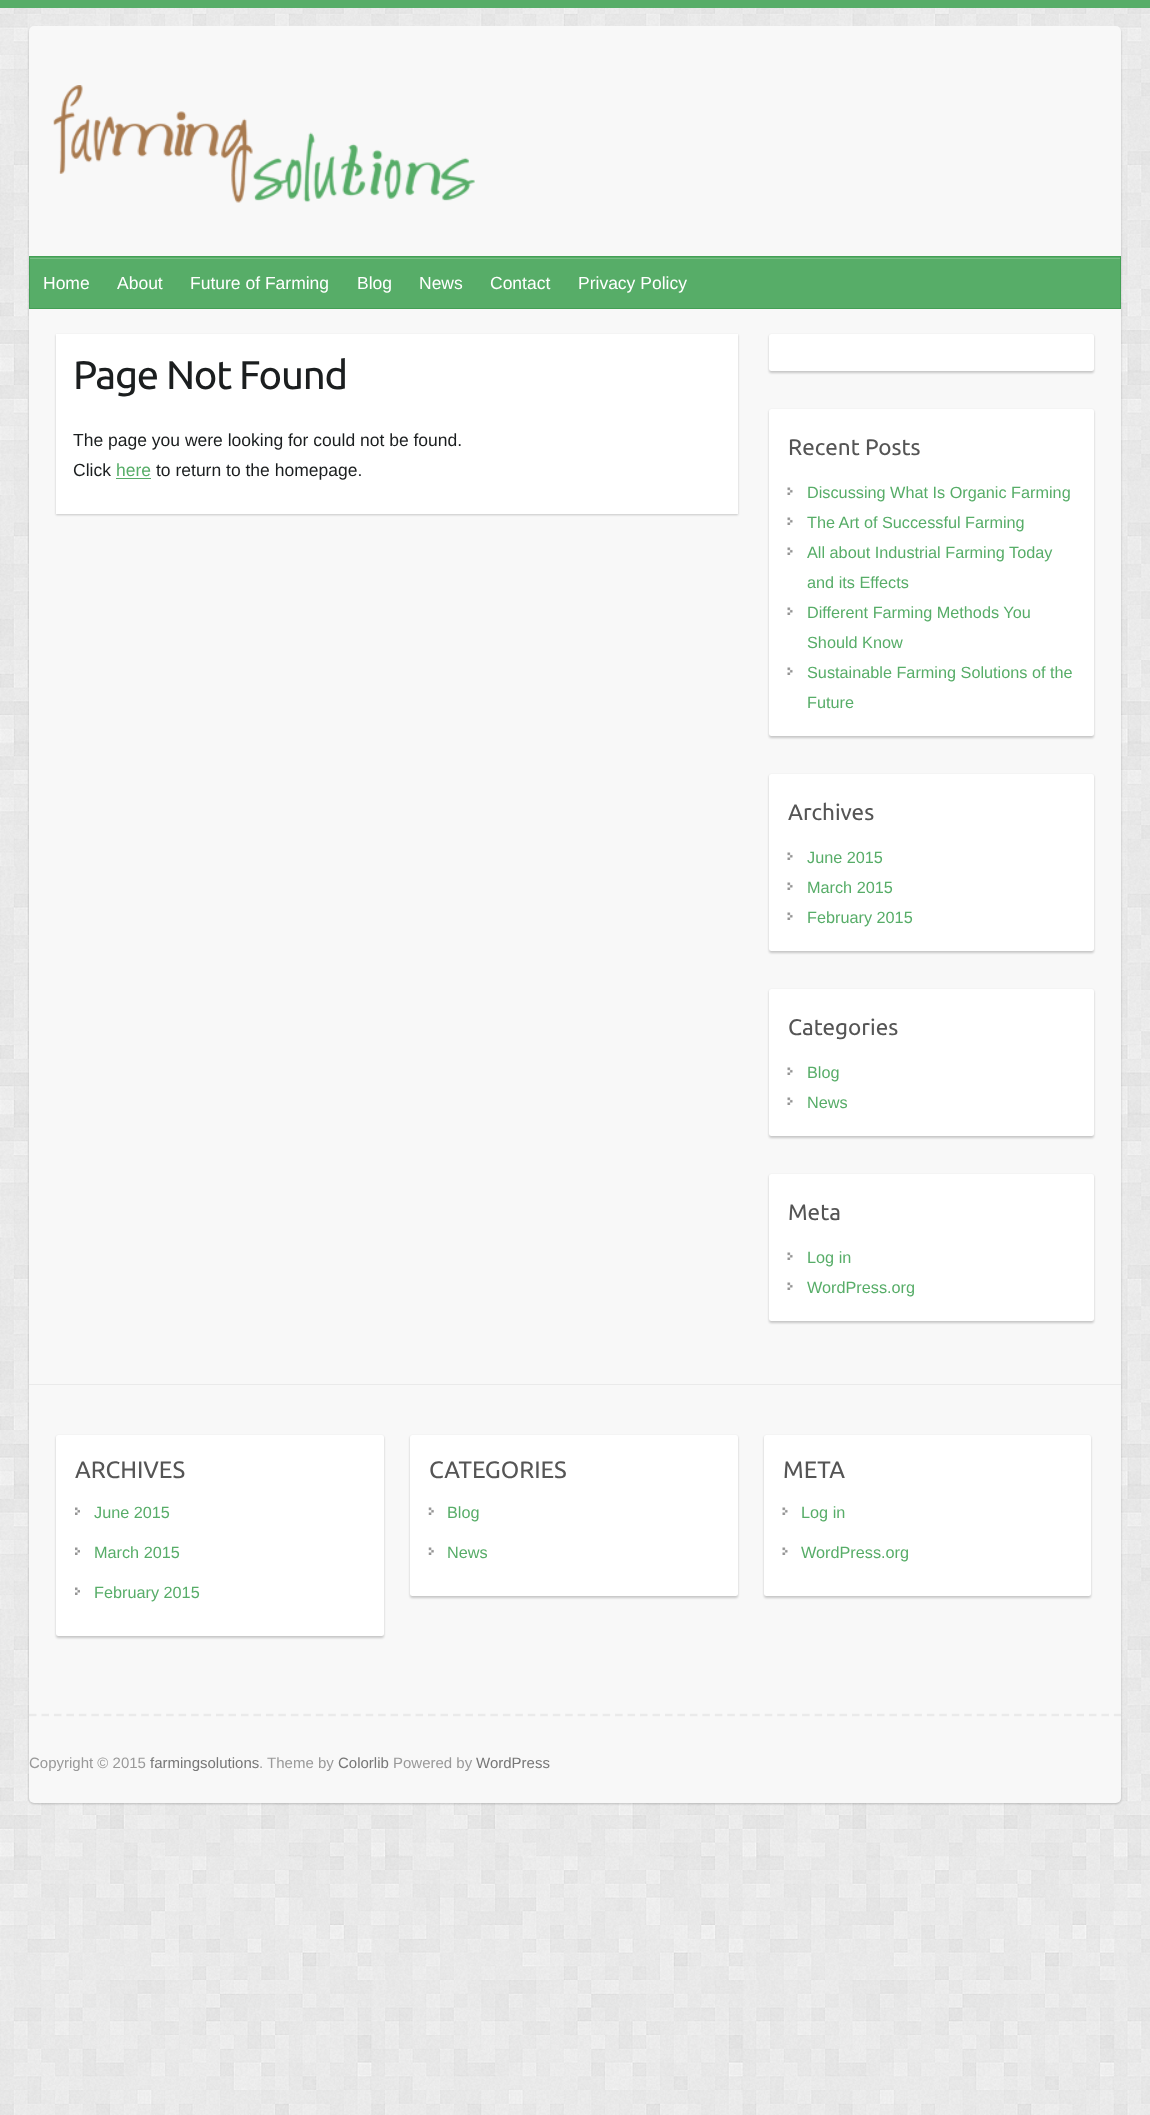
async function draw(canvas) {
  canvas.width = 1150
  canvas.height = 2115
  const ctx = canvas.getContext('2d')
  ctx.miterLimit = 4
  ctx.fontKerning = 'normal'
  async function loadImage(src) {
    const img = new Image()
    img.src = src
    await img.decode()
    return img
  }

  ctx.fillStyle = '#fff'
  ctx.fillRect(0, 0, 1150, 2115)
  ctx.drawImage(await loadImage('image0.png'), 0, 8, 1150, 2107)
  ctx.fillStyle = '#57ad68'
  ctx.fillRect(0, 0, 1150, 8)
  ctx.fillStyle = '#00000033'
  ctx.filter = 'blur(1px)'
  ctx.beginPath()
  ctx.roundRect(29, 28, 1092, 1776, 5)
  ctx.fill()
  ctx.filter = 'none'
  ctx.fillStyle = '#f8f8f8'
  ctx.beginPath()
  ctx.roundRect(29, 26, 1092, 1777, 5)
  ctx.fill()
  ctx.drawImage(await loadImage('image1.png'), 53, 85, 422, 118)
  ctx.fillStyle = '#57ad68'
  ctx.fillRect(30, 257, 1090, 51)
  ctx.fillStyle = '#79bd86'
  ctx.fillRect(30, 258, 1090, 1)
  ctx.strokeStyle = '#439f55'
  ctx.strokeRect(29.5, 256.5, 1091, 52)
  ctx.font = '17.5px Liberation Sans'
  ctx.fillStyle = '#fff'
  ctx.fillText('Home', 43, 289)
  ctx.fillText('About', 117, 289)
  ctx.fillText('Future of Farming', 190, 289)
  ctx.fillText('Blog', 357, 289)
  ctx.fillText('News', 419, 289)
  ctx.fillText('Contact', 490, 289)
  ctx.fillText('Privacy Policy', 578, 289)
  ctx.fillStyle = '#00000033'
  ctx.filter = 'blur(1px)'
  ctx.beginPath()
  ctx.rect(56, 335, 682, 180)
  ctx.fill()
  ctx.filter = 'none'
  ctx.fillStyle = '#fff'
  ctx.fillRect(56, 334, 682, 180)
  ctx.letterSpacing = '-1.25px'
  ctx.font = '40px Ubuntu'
  ctx.fillStyle = '#1b1e1f'
  ctx.fillText('Page Not Found', 73, 389)
  ctx.letterSpacing = '0px'
  ctx.font = '17.5px Liberation Sans'
  ctx.fillText('The page you were looking for could not be found.', 73, 446)
  ctx.fillText('Click', 73, 476)
  ctx.fillStyle = '#57ad68'
  ctx.fillText('here', 116, 476)
  ctx.fillRect(116, 478, 35, 1)
  ctx.fillStyle = '#1b1e1f'
  ctx.fillText('to return to the homepage.', 156, 476)
  ctx.fillStyle = '#00000033'
  ctx.filter = 'blur(1px)'
  ctx.beginPath()
  ctx.roundRect(769, 335, 325, 38, 2.5)
  ctx.fill()
  ctx.filter = 'none'
  ctx.fillStyle = '#fff'
  ctx.beginPath()
  ctx.roundRect(769, 334, 325, 37, 2.5)
  ctx.fill()
  ctx.fillStyle = '#00000033'
  ctx.filter = 'blur(1px)'
  ctx.beginPath()
  ctx.roundRect(769, 410, 325, 328, 2.5)
  ctx.fill()
  ctx.filter = 'none'
  ctx.fillStyle = '#fff'
  ctx.beginPath()
  ctx.roundRect(769, 409, 325, 327, 2.5)
  ctx.fill()
  ctx.font = '22.5px Ubuntu'
  ctx.fillStyle = '#555'
  ctx.fillText('Recent Posts', 788, 455)
  ctx.drawImage(await loadImage('image2.png'), 787, 487, 6, 8)
  ctx.font = '16.25px Liberation Sans'
  ctx.fillStyle = '#57ad68'
  ctx.fillText('Discussing What Is Organic Farming', 807, 498)
  ctx.drawImage(await loadImage('image2.png'), 787, 517, 6, 8)
  ctx.fillText('The Art of Successful Farming', 807, 528)
  ctx.drawImage(await loadImage('image2.png'), 787, 547, 6, 8)
  ctx.fillText('All about Industrial Farming Today', 807, 558)
  ctx.fillText('and its Effects', 807, 588)
  ctx.drawImage(await loadImage('image2.png'), 787, 607, 6, 8)
  ctx.fillText('Different Farming Methods You', 807, 618)
  ctx.fillText('Should Know', 807, 648)
  ctx.drawImage(await loadImage('image2.png'), 787, 667, 6, 8)
  ctx.fillText('Sustainable Farming Solutions of the', 807, 678)
  ctx.fillText('Future', 807, 708)
  ctx.fillStyle = '#00000033'
  ctx.filter = 'blur(1px)'
  ctx.beginPath()
  ctx.roundRect(769, 775, 325, 178, 2.5)
  ctx.fill()
  ctx.filter = 'none'
  ctx.fillStyle = '#fff'
  ctx.beginPath()
  ctx.roundRect(769, 774, 325, 177, 2.5)
  ctx.fill()
  ctx.font = '22.5px Ubuntu'
  ctx.fillStyle = '#555'
  ctx.fillText('Archives', 788, 820)
  ctx.drawImage(await loadImage('image2.png'), 787, 852, 6, 8)
  ctx.font = '16.25px Liberation Sans'
  ctx.fillStyle = '#57ad68'
  ctx.fillText('June 2015', 807, 863)
  ctx.drawImage(await loadImage('image2.png'), 787, 882, 6, 8)
  ctx.fillText('March 2015', 807, 893)
  ctx.drawImage(await loadImage('image2.png'), 787, 912, 6, 8)
  ctx.fillText('February 2015', 807, 923)
  ctx.fillStyle = '#00000033'
  ctx.filter = 'blur(1px)'
  ctx.beginPath()
  ctx.roundRect(769, 990, 325, 148, 2.5)
  ctx.fill()
  ctx.filter = 'none'
  ctx.fillStyle = '#fff'
  ctx.beginPath()
  ctx.roundRect(769, 989, 325, 147, 2.5)
  ctx.fill()
  ctx.font = '22.5px Ubuntu'
  ctx.fillStyle = '#555'
  ctx.fillText('Categories', 788, 1035)
  ctx.drawImage(await loadImage('image2.png'), 787, 1067, 6, 8)
  ctx.font = '16.25px Liberation Sans'
  ctx.fillStyle = '#57ad68'
  ctx.fillText('Blog', 807, 1078)
  ctx.drawImage(await loadImage('image2.png'), 787, 1097, 6, 8)
  ctx.fillText('News', 807, 1108)
  ctx.fillStyle = '#00000033'
  ctx.filter = 'blur(1px)'
  ctx.beginPath()
  ctx.roundRect(769, 1175, 325, 148, 2.5)
  ctx.fill()
  ctx.filter = 'none'
  ctx.fillStyle = '#fff'
  ctx.beginPath()
  ctx.roundRect(769, 1174, 325, 147, 2.5)
  ctx.fill()
  ctx.font = '22.5px Ubuntu'
  ctx.fillStyle = '#555'
  ctx.fillText('Meta', 788, 1220)
  ctx.drawImage(await loadImage('image2.png'), 787, 1252, 6, 8)
  ctx.font = '16.25px Liberation Sans'
  ctx.fillStyle = '#57ad68'
  ctx.fillText('Log in', 807, 1263)
  ctx.drawImage(await loadImage('image2.png'), 787, 1282, 6, 8)
  ctx.fillText('WordPress.org', 807, 1293)
  ctx.fillStyle = '#eaeaea'
  ctx.fillRect(29, 1384, 1092, 1)
  ctx.fillStyle = '#00000033'
  ctx.filter = 'blur(1px)'
  ctx.beginPath()
  ctx.roundRect(56, 1436, 328, 202, 2.5)
  ctx.fill()
  ctx.filter = 'none'
  ctx.fillStyle = '#fff'
  ctx.beginPath()
  ctx.roundRect(56, 1435, 328, 201, 2.5)
  ctx.fill()
  ctx.font = '23.75px Ubuntu'
  ctx.fillStyle = '#555'
  ctx.fillText('ARCHIVES', 75, 1478)
  ctx.drawImage(await loadImage('image3.png'), 75, 1507, 5, 8)
  ctx.font = '16.25px Liberation Sans'
  ctx.fillStyle = '#57ad68'
  ctx.fillText('June 2015', 94, 1518)
  ctx.drawImage(await loadImage('image3.png'), 75, 1547, 5, 8)
  ctx.fillText('March 2015', 94, 1558)
  ctx.drawImage(await loadImage('image3.png'), 75, 1587, 5, 8)
  ctx.fillText('February 2015', 94, 1598)
  ctx.fillStyle = '#00000033'
  ctx.filter = 'blur(1px)'
  ctx.beginPath()
  ctx.roundRect(410, 1436, 328, 162, 2.5)
  ctx.fill()
  ctx.filter = 'none'
  ctx.fillStyle = '#fff'
  ctx.beginPath()
  ctx.roundRect(410, 1435, 328, 161, 2.5)
  ctx.fill()
  ctx.font = '23.75px Ubuntu'
  ctx.fillStyle = '#555'
  ctx.fillText('CATEGORIES', 429, 1478)
  ctx.drawImage(await loadImage('image4.png'), 428, 1507, 6, 8)
  ctx.font = '16.25px Liberation Sans'
  ctx.fillStyle = '#57ad68'
  ctx.fillText('Blog', 447, 1518)
  ctx.drawImage(await loadImage('image4.png'), 428, 1547, 6, 8)
  ctx.fillText('News', 447, 1558)
  ctx.fillStyle = '#00000033'
  ctx.filter = 'blur(1px)'
  ctx.beginPath()
  ctx.roundRect(764, 1436, 327, 162, 2.5)
  ctx.fill()
  ctx.filter = 'none'
  ctx.fillStyle = '#fff'
  ctx.beginPath()
  ctx.roundRect(764, 1435, 327, 161, 2.5)
  ctx.fill()
  ctx.font = '23.75px Ubuntu'
  ctx.fillStyle = '#555'
  ctx.fillText('META', 783, 1478)
  ctx.drawImage(await loadImage('image2.png'), 782, 1507, 6, 8)
  ctx.font = '16.25px Liberation Sans'
  ctx.fillStyle = '#57ad68'
  ctx.fillText('Log in', 801, 1518)
  ctx.drawImage(await loadImage('image2.png'), 782, 1547, 6, 8)
  ctx.fillText('WordPress.org', 801, 1558)
  ctx.beginPath()
  ctx.moveTo(29, 1715)
  ctx.lineTo(1121, 1715)
  ctx.strokeStyle = '#eaeaea'
  ctx.lineWidth = 2.5
  ctx.setLineDash([7.5, 4.97])
  ctx.stroke()
  ctx.font = '15px Liberation Sans'
  ctx.fillStyle = '#999'
  ctx.fillText('Copyright © 2015', 29, 1768)
  ctx.fillStyle = '#777'
  ctx.fillText('farmingsolutions', 150, 1768)
  ctx.fillStyle = '#999'
  ctx.fillText('. Theme by', 259, 1768)
  ctx.fillStyle = '#777'
  ctx.fillText('Colorlib', 338, 1768)
  ctx.fillStyle = '#999'
  ctx.fillText('Powered by', 393, 1768)
  ctx.fillStyle = '#777'
  ctx.fillText('WordPress', 476, 1768)
}

draw(document.querySelector('canvas'))
